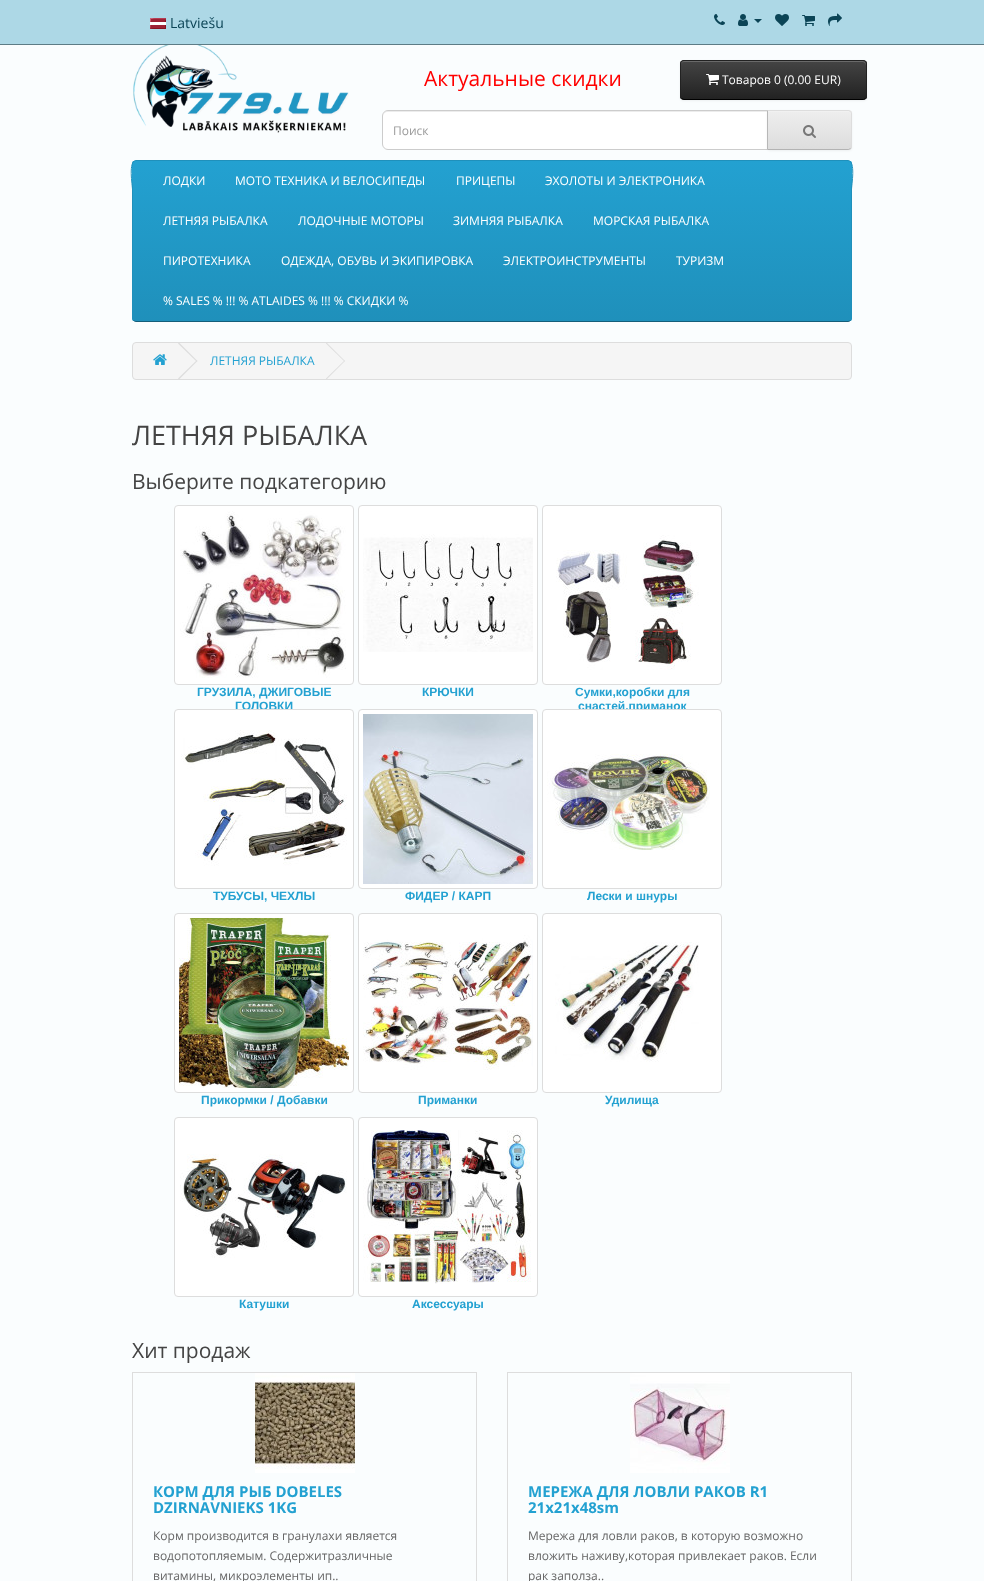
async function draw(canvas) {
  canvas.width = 984
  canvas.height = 1581
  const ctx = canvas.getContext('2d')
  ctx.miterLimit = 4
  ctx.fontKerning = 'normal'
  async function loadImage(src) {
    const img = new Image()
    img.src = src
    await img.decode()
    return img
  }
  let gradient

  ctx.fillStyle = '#fafdfe'
  ctx.fillRect(0, 0, 984, 1581)
  ctx.fillStyle = '#add8e6'
  ctx.fillRect(0, 0, 984, 44)
  ctx.fillStyle = '#5d7c86'
  ctx.fillRect(0, 44, 984, 1)
  ctx.drawImage(await loadImage('image0.png'), 150, 18, 16, 11)
  ctx.font = '14px Open Sans'
  ctx.fillStyle = '#0b4456'
  ctx.fillText('Latviešu', 170, 28)
  ctx.drawImage(await loadImage('image1.png'), 714, 14, 11, 11)
  ctx.drawImage(await loadImage('image2.png'), 738, 14, 10, 12)
  ctx.beginPath()
  ctx.moveTo(754, 19)
  ctx.lineTo(762, 19)
  ctx.lineTo(758, 23)
  ctx.closePath()
  ctx.fill()
  ctx.drawImage(await loadImage('image3.png'), 775, 14, 14, 12)
  ctx.drawImage(await loadImage('image4.png'), 802, 15, 13, 11)
  ctx.drawImage(await loadImage('image5.png'), 828, 13, 14, 13)
  ctx.drawImage(await loadImage('image6.png'), 133, 45, 216, 88)
  ctx.font = '21px Open Sans'
  ctx.fillStyle = '#f00'
  ctx.fillText('Актуальные скидки', 424, 86)
  ctx.fillStyle = '#0000000d'
  ctx.filter = 'blur(1px)'
  ctx.beginPath()
  ctx.roundRect(680, 61, 187, 40, 4)
  ctx.fill()
  ctx.filter = 'none'
  ctx.fillStyle = '#363636'
  ctx.beginPath()
  ctx.roundRect(680, 60, 187, 40, 4)
  ctx.fill()
  ctx.save()
  ctx.beginPath()
  ctx.roundRect(680, 60, 187, 40, 4)
  ctx.clip()
  gradient = ctx.createLinearGradient(774, 61, 774, 99)
  gradient.addColorStop(0, '#444')
  gradient.addColorStop(1, '#222')
  ctx.fillStyle = gradient
  ctx.fillRect(680, 61, 187, 38)
  ctx.restore()
  ctx.fillStyle = '#696969'
  ctx.beginPath()
  ctx.moveTo(684, 62)
  ctx.lineTo(863, 62)
  ctx.lineTo(865, 63)
  ctx.lineTo(866, 65)
  ctx.bezierCurveTo(866, 63, 865, 61, 863, 61)
  ctx.lineTo(683, 61)
  ctx.bezierCurveTo(681, 62, 681, 63, 681, 65)
  ctx.bezierCurveTo(681, 63, 682, 62, 684, 62)
  ctx.closePath()
  ctx.fill()
  ctx.beginPath()
  ctx.moveTo(865.5, 98.5)
  ctx.lineTo(863.5, 99.5)
  ctx.lineTo(714, 99.5)
  ctx.lineTo(684, 99.5)
  ctx.lineTo(681.5, 98.5)
  ctx.strokeStyle = '#000'
  ctx.stroke()
  ctx.beginPath()
  ctx.moveTo(681.5, 98.5)
  ctx.bezierCurveTo(681, 98, 680.5, 97, 680.5, 96)
  ctx.lineTo(680.5, 64)
  ctx.bezierCurveTo(680.5, 63, 681, 62, 681.5, 61.5)
  ctx.bezierCurveTo(682, 61, 683, 60.5, 684, 60.5)
  ctx.lineTo(863, 60.5)
  ctx.bezierCurveTo(864, 60.5, 865, 61, 865.5, 61.5)
  ctx.bezierCurveTo(866, 62, 866.5, 63, 866.5, 64)
  ctx.lineTo(866.5, 96)
  ctx.bezierCurveTo(866.5, 97, 866, 98, 865.5, 98.5)
  ctx.strokeStyle = '#222'
  ctx.stroke()
  ctx.drawImage(await loadImage('image7.png'), 706, 74, 13, 11)
  ctx.font = '12px Open Sans'
  ctx.fillStyle = '#fff'
  ctx.fillText('Товаров 0 (0.00 EUR)', 722, 84)
  ctx.beginPath()
  ctx.roundRect(382, 110, 386, 40, [6, 0, 0, 6])
  ctx.fill()
  ctx.fillStyle = '#ececec'
  ctx.beginPath()
  ctx.moveTo(388, 112)
  ctx.lineTo(767, 112)
  ctx.lineTo(767, 111)
  ctx.lineTo(388, 111)
  ctx.bezierCurveTo(385, 111, 383, 114, 383, 117)
  ctx.bezierCurveTo(383, 114, 385, 112, 388, 112)
  ctx.closePath()
  ctx.fill()
  ctx.beginPath()
  ctx.roundRect(382.5, 110.5, 385, 39, [5.5, 0, 0, 5.5])
  ctx.strokeStyle = '#ccc'
  ctx.stroke()
  ctx.fillStyle = '#999'
  ctx.fillText('Поиск', 393, 135)
  ctx.fillStyle = '#0000000d'
  ctx.filter = 'blur(1px)'
  ctx.beginPath()
  ctx.roundRect(767, 111, 85, 40, 4)
  ctx.fill()
  ctx.filter = 'none'
  ctx.fillStyle = '#e7e7e7'
  ctx.beginPath()
  ctx.roundRect(767, 110, 85, 40, [0, 4, 4, 0])
  ctx.fill()
  ctx.save()
  ctx.beginPath()
  ctx.roundRect(767, 110, 85, 40, [0, 4, 4, 0])
  ctx.clip()
  gradient = ctx.createLinearGradient(810, 111, 810, 149)
  gradient.addColorStop(0, '#eee')
  gradient.addColorStop(1, '#ddd')
  ctx.fillStyle = gradient
  ctx.fillRect(768, 111, 84, 38)
  ctx.restore()
  ctx.fillStyle = '#f1f1f1'
  ctx.beginPath()
  ctx.moveTo(768, 112)
  ctx.lineTo(848, 112)
  ctx.bezierCurveTo(850, 112, 851, 113, 851, 115)
  ctx.lineTo(851, 114)
  ctx.bezierCurveTo(851, 112, 850, 111, 848, 111)
  ctx.lineTo(768, 111)
  ctx.closePath()
  ctx.fill()
  ctx.fillStyle = '#ddd'
  ctx.beginPath()
  ctx.moveTo(767, 110)
  ctx.lineTo(768, 111)
  ctx.lineTo(849, 111)
  ctx.lineTo(850, 112)
  ctx.lineTo(851, 111)
  ctx.lineTo(848, 110)
  ctx.closePath()
  ctx.fill()
  ctx.beginPath()
  ctx.moveTo(852, 146)
  ctx.lineTo(852, 114)
  ctx.bezierCurveTo(852, 113, 851.5, 112, 851, 111)
  ctx.lineTo(850, 112)
  ctx.bezierCurveTo(851, 112, 851, 113, 851, 114)
  ctx.lineTo(851, 146)
  ctx.bezierCurveTo(851, 147, 851, 148, 850, 148)
  ctx.lineTo(851, 149)
  ctx.bezierCurveTo(851.5, 148, 852, 147, 852, 146)
  ctx.closePath()
  ctx.fill()
  ctx.fillStyle = '#b3b3b3'
  ctx.beginPath()
  ctx.moveTo(848, 150)
  ctx.lineTo(851, 149)
  ctx.lineTo(850, 148)
  ctx.lineTo(849, 149)
  ctx.lineTo(768, 149)
  ctx.lineTo(767, 150)
  ctx.closePath()
  ctx.fill()
  ctx.fillStyle = '#b7b7b7'
  ctx.beginPath()
  ctx.moveTo(767, 110)
  ctx.lineTo(767, 150)
  ctx.lineTo(768, 149)
  ctx.lineTo(768, 111)
  ctx.closePath()
  ctx.fill()
  ctx.drawImage(await loadImage('image8.png'), 803, 125, 13, 13)
  ctx.save()
  ctx.beginPath()
  ctx.roundRect(132, 160, 720, 162, 4)
  ctx.clip()
  gradient = ctx.createLinearGradient(492, 161, 492, 321)
  gradient.addColorStop(0, '#23a1d1')
  gradient.addColorStop(1, '#1f90bb')
  ctx.fillStyle = gradient
  ctx.fillRect(132, 161, 720, 160)
  ctx.restore()
  ctx.beginPath()
  ctx.moveTo(850.5, 320.5)
  ctx.bezierCurveTo(850, 321, 849, 321.5, 848, 321.5)
  ctx.lineTo(136, 321.5)
  ctx.bezierCurveTo(135, 321.5, 134, 321, 133.5, 320.5)
  ctx.strokeStyle = '#145e7a'
  ctx.stroke()
  ctx.beginPath()
  ctx.moveTo(133.5, 320.5)
  ctx.lineTo(132.5, 318)
  ctx.lineTo(132.5, 189.5)
  ctx.bezierCurveTo(132.5, 185.5, 128, 160.5, 136, 160.5)
  ctx.lineTo(848, 160.5)
  ctx.bezierCurveTo(856, 160.5, 851.5, 185.5, 851.5, 189.5)
  ctx.lineTo(851.5, 318)
  ctx.lineTo(850.5, 320.5)
  ctx.strokeStyle = '#1f90bb'
  ctx.stroke()
  ctx.fillStyle = '#fff'
  ctx.fillText('ЛОДКИ', 163, 185)
  ctx.fillText('МОТО ТЕХНИКА И ВЕЛОСИПЕДЫ', 235, 185)
  ctx.fillText('ПРИЦЕПЫ', 456, 185)
  ctx.fillText('ЭХОЛОТЫ И ЭЛЕКТРОНИКА', 545, 185)
  ctx.fillText('ЛЕТНЯЯ РЫБАЛКА', 163, 225)
  ctx.fillText('ЛОДОЧНЫЕ МОТОРЫ', 298, 225)
  ctx.fillText('ЗИМНЯЯ РЫБАЛКА', 453, 225)
  ctx.fillText('МОРСКАЯ РЫБАЛКА', 593, 225)
  ctx.fillText('ПИРОТЕХНИКА', 163, 265)
  ctx.fillText('ОДЕЖДА, ОБУВЬ И ЭКИПИРОВКА', 281, 265)
  ctx.fillText('ЭЛЕКТРОИНСТРУМЕНТЫ', 503, 265)
  ctx.fillText('ТУРИЗМ', 676, 265)
  ctx.fillText('% SALES % !!! % ATLAIDES % !!! % СКИДКИ %', 163, 305)
  ctx.fillStyle = '#f5f5f5'
  ctx.beginPath()
  ctx.roundRect(132.5, 342.5, 719, 37, 3.5)
  ctx.fill()
  ctx.strokeStyle = '#ddd'
  ctx.stroke()
  ctx.drawImage(await loadImage('image9.png'), 153, 354, 14, 11)
  ctx.fillStyle = '#ddd'
  ctx.beginPath()
  ctx.moveTo(178, 343.5)
  ctx.lineTo(179, 342.5)
  ctx.lineTo(197.5, 361)
  ctx.lineTo(196.5, 361.5)
  ctx.closePath()
  ctx.fill()
  ctx.beginPath()
  ctx.moveTo(178, 378.5)
  ctx.lineTo(196.5, 360.5)
  ctx.lineTo(197.5, 361)
  ctx.lineTo(179, 379.5)
  ctx.closePath()
  ctx.fill()
  ctx.fillStyle = '#23a1d1'
  ctx.fillText('ЛЕТНЯЯ РЫБАЛКА', 210, 365)
  ctx.fillStyle = '#ddd'
  ctx.beginPath()
  ctx.moveTo(326, 343.5)
  ctx.lineTo(326.5, 342.5)
  ctx.lineTo(345, 361)
  ctx.lineTo(344.5, 361.5)
  ctx.closePath()
  ctx.fill()
  ctx.beginPath()
  ctx.moveTo(326, 378.5)
  ctx.lineTo(344.5, 360.5)
  ctx.lineTo(345, 361)
  ctx.lineTo(326.5, 379.5)
  ctx.closePath()
  ctx.fill()
  ctx.font = '27px Open Sans'
  ctx.fillStyle = '#444'
  ctx.fillText('ЛЕТНЯЯ РЫБАЛКА', 132, 445)
  ctx.font = '21px Open Sans'
  ctx.fillText('Выберите подкатегорию', 132, 489)
  ctx.fillStyle = '#fff'
  ctx.beginPath()
  ctx.roundRect(174.5, 505.5, 179, 179, 3.5)
  ctx.fill()
  ctx.stroke()
  ctx.drawImage(await loadImage('image10.png'), 180, 511, 166, 167)
  ctx.font = 'bold 12px Liberation Sans'
  ctx.fillStyle = '#23a1d1'
  ctx.fillText('ГРУЗИЛА, ДЖИГОВЫЕ', 197, 696)
  ctx.fillText('ГОЛОВКИ', 235, 710)
  ctx.fillStyle = '#fff'
  ctx.beginPath()
  ctx.roundRect(358.5, 505.5, 179, 179, 3.5)
  ctx.fill()
  ctx.stroke()
  ctx.drawImage(await loadImage('image11.png'), 363, 534, 170, 118)
  ctx.fillStyle = '#23a1d1'
  ctx.fillText('КРЮЧКИ', 422, 696)
  ctx.fillStyle = '#fff'
  ctx.beginPath()
  ctx.roundRect(542.5, 505.5, 179, 179, 3.5)
  ctx.fill()
  ctx.stroke()
  ctx.drawImage(await loadImage('image12.png'), 556, 535, 143, 135)
  ctx.fillStyle = '#23a1d1'
  ctx.fillText('Сумки,коробки для', 575, 696)
  ctx.fillText('снастей,приманок', 578, 710)
  ctx.fillStyle = '#fff'
  ctx.beginPath()
  ctx.roundRect(174.5, 709.5, 179, 179, 3.5)
  ctx.fill()
  ctx.stroke()
  ctx.drawImage(await loadImage('image13.png'), 181, 730, 166, 136)
  ctx.fillStyle = '#23a1d1'
  ctx.fillText('ТУБУСЫ, ЧЕХЛЫ', 213, 900)
  ctx.fillStyle = '#fff'
  ctx.beginPath()
  ctx.roundRect(358.5, 709.5, 179, 179, 3.5)
  ctx.fill()
  ctx.stroke()
  ctx.drawImage(await loadImage('image14.png'), 363, 714, 170, 170)
  ctx.fillStyle = '#23a1d1'
  ctx.fillText('ФИДЕР / КАРП', 405, 900)
  ctx.fillStyle = '#fff'
  ctx.beginPath()
  ctx.roundRect(542.5, 709.5, 179, 179, 3.5)
  ctx.fill()
  ctx.stroke()
  ctx.drawImage(await loadImage('image15.png'), 547, 754, 163, 96)
  ctx.fillStyle = '#23a1d1'
  ctx.fillText('Лески и шнуры', 587, 900)
  ctx.fillStyle = '#fff'
  ctx.beginPath()
  ctx.roundRect(174.5, 913.5, 179, 179, 3.5)
  ctx.fill()
  ctx.stroke()
  ctx.drawImage(await loadImage('image16.png'), 179, 918, 170, 170)
  ctx.fillStyle = '#23a1d1'
  ctx.fillText('Прикормки / Добавки', 201, 1104)
  ctx.fillStyle = '#fff'
  ctx.beginPath()
  ctx.roundRect(358.5, 913.5, 179, 179, 3.5)
  ctx.fill()
  ctx.stroke()
  ctx.drawImage(await loadImage('image17.png'), 363, 935, 170, 135)
  ctx.fillStyle = '#23a1d1'
  ctx.fillText('Приманки', 418, 1104)
  ctx.fillStyle = '#fff'
  ctx.beginPath()
  ctx.roundRect(542.5, 913.5, 179, 179, 3.5)
  ctx.fill()
  ctx.stroke()
  ctx.drawImage(await loadImage('image18.png'), 555, 942, 144, 120)
  ctx.fillStyle = '#23a1d1'
  ctx.fillText('Удилища', 605, 1104)
  ctx.fillStyle = '#fff'
  ctx.beginPath()
  ctx.roundRect(174.5, 1117.5, 179, 179, 3.5)
  ctx.fill()
  ctx.stroke()
  ctx.drawImage(await loadImage('image19.png'), 180, 1154, 167, 104)
  ctx.fillStyle = '#23a1d1'
  ctx.fillText('Катушки', 239, 1308)
  ctx.fillStyle = '#fff'
  ctx.beginPath()
  ctx.roundRect(358.5, 1117.5, 179, 179, 3.5)
  ctx.fill()
  ctx.stroke()
  ctx.drawImage(await loadImage('image20.png'), 363, 1130, 168, 154)
  ctx.fillStyle = '#23a1d1'
  ctx.fillText('Аксессуары', 412, 1308)
  ctx.font = '21px Open Sans'
  ctx.fillStyle = '#444'
  ctx.fillText('Хит продаж', 132, 1358)
  ctx.strokeRect(132.5, 1372.5, 344, 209)
  ctx.drawImage(await loadImage('image21.png'), 255, 1373, 100, 100)
  ctx.font = 'bold 15px Open Sans'
  ctx.fillStyle = '#23a1d1'
  ctx.fillText('КОРМ ДЛЯ РЫБ DOBELES', 153, 1497)
  ctx.fillText('DZIRNAVNIEKS 1KG', 153, 1513)
  ctx.font = '12px Open Sans'
  ctx.fillStyle = '#666'
  ctx.fillText('Корм производится в гранулахи является', 153, 1540)
  ctx.fillText('водопотопляемым. Содержитразличные', 153, 1560)
  ctx.fillText('витамины, микроэлементы ип..', 153, 1580)
  ctx.strokeRect(507.5, 1372.5, 344, 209)
  ctx.drawImage(await loadImage('image22.png'), 630, 1373, 100, 100)
  ctx.font = 'bold 15px Open Sans'
  ctx.fillStyle = '#23a1d1'
  ctx.fillText('МЕРЕЖА ДЛЯ ЛОВЛИ РАКОВ R1', 528, 1497)
  ctx.fillText('21x21x48sm', 528, 1513)
  ctx.font = '12px Open Sans'
  ctx.fillStyle = '#666'
  ctx.fillText('Мережа для ловли раков, в которую возможно', 528, 1540)
  ctx.fillText('вложить наживу,которая привлекает раков. Если', 528, 1560)
  ctx.fillText('рак заполза..', 528, 1580)
}

draw(document.querySelector('canvas'))
